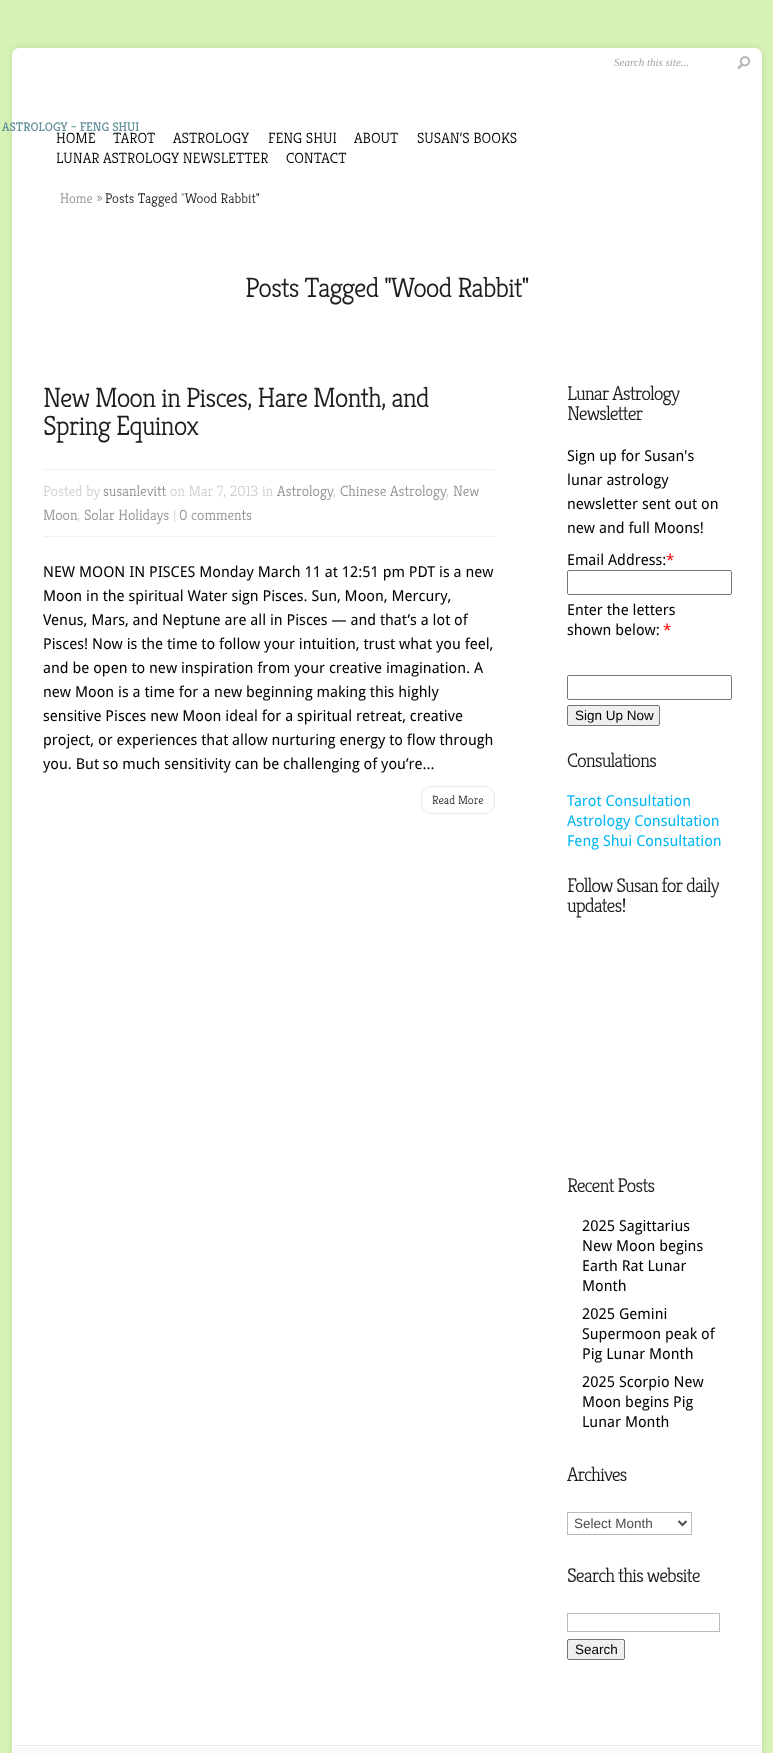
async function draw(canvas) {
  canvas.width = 773
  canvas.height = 1753
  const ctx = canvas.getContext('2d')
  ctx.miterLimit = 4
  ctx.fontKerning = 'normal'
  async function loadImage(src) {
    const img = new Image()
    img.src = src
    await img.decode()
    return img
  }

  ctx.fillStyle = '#d6f2b5'
  ctx.fillRect(0, 0, 773, 1753)
  ctx.fillStyle = '#0000001a'
  ctx.filter = 'blur(3px)'
  ctx.beginPath()
  ctx.roundRect(12, 48, 750, 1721, 7)
  ctx.fill()
  ctx.filter = 'none'
  ctx.fillStyle = '#fff'
  ctx.beginPath()
  ctx.roundRect(12, 48, 750, 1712, 7)
  ctx.fill()
  ctx.font = 'italic 11px Liberation Serif'
  ctx.fillStyle = '#a3a3a3'
  ctx.fillText('Search this site...', 614, 66)
  ctx.drawImage(await loadImage('image0.png'), 737, 56, 13, 13)
  ctx.font = '12.5px Kreon'
  ctx.fillStyle = '#66929c'
  ctx.fillText('ASTROLOGY – FENG SHUI', 2, 131)
  ctx.font = '300 15px Kreon'
  ctx.fillStyle = '#000'
  ctx.fillText('HOME', 56, 143)
  ctx.fillText('TAROT', 113, 143)
  ctx.fillText('ASTROLOGY', 173, 143)
  ctx.fillText('FENG SHUI', 268, 143)
  ctx.fillText('ABOUT', 354, 143)
  ctx.fillText('SUSAN’S BOOKS', 417, 143)
  ctx.fillText('LUNAR ASTROLOGY NEWSLETTER', 56, 163)
  ctx.fillText('CONTACT', 286, 163)
  ctx.font = '300 14px Kreon'
  ctx.fillStyle = '#929292'
  ctx.fillText('Home »', 60, 203)
  ctx.fillStyle = '#1d1d1d'
  ctx.fillText('Posts Tagged', 105, 203)
  ctx.fillStyle = '#929292'
  ctx.fillText('"', 181, 203)
  ctx.fillStyle = '#1d1d1d'
  ctx.fillText('Wood Rabbit"', 185, 203)
  ctx.letterSpacing = '-1px'
  ctx.font = '300 28px Kreon'
  ctx.fillText('Posts Tagged "Wood Rabbit"', 245, 297)
  ctx.fillText('New Moon in Pisces, Hare Month, and', 43, 407)
  ctx.fillText('Spring Equinox', 43, 435)
  ctx.fillStyle = '#f0f0f0'
  ctx.fillRect(43, 469, 452, 1)
  ctx.fillRect(43, 536, 452, 1)
  ctx.letterSpacing = '0px'
  ctx.font = '300 15px Kreon'
  ctx.fillStyle = '#d0d0d0'
  ctx.fillText('Posted by', 43, 496)
  ctx.fillStyle = '#929292'
  ctx.fillText('susanlevitt', 103, 496)
  ctx.fillStyle = '#d0d0d0'
  ctx.fillText('on Mar 7, 2013 in', 170, 496)
  ctx.fillStyle = '#929292'
  ctx.fillText('Astrology', 277, 496)
  ctx.fillStyle = '#d0d0d0'
  ctx.fillText(',', 333, 496)
  ctx.fillStyle = '#929292'
  ctx.fillText('Chinese Astrology', 340, 496)
  ctx.fillStyle = '#d0d0d0'
  ctx.fillText(',', 446, 496)
  ctx.fillStyle = '#929292'
  ctx.fillText('New', 453, 496)
  ctx.fillText('Moon', 43, 520)
  ctx.fillStyle = '#d0d0d0'
  ctx.fillText(',', 77, 520)
  ctx.fillStyle = '#929292'
  ctx.fillText('Solar Holidays', 84, 520)
  ctx.fillStyle = '#d0d0d0'
  ctx.fillText('|', 173, 520)
  ctx.fillStyle = '#929292'
  ctx.fillText('0 comments', 179, 520)
  ctx.font = '15px Droid Sans'
  ctx.fillStyle = '#000'
  ctx.fillText('NEW MOON IN PISCES Monday March 11 at 12:51 pm PDT is a new', 43, 577)
  ctx.fillText('Moon in the spiritual Water sign Pisces. Sun, Moon, Mercury,', 43, 601)
  ctx.fillText('Venus, Mars, and Neptune are all in Pisces — and that’s a lot of', 43, 625)
  ctx.fillText('Pisces! Now is the time to follow your intuition, trust what you feel,', 43, 649)
  ctx.fillText('and be open to new inspiration from your creative imagination. A', 43, 673)
  ctx.fillText('new Moon is a time for a new beginning making this highly', 43, 697)
  ctx.fillText('sensitive Pisces new Moon ideal for a spiritual retreat, creative', 43, 721)
  ctx.fillText('project, or experiences that allow nurturing energy to flow through', 43, 745)
  ctx.fillText('you. But so much sensitivity can be challenging of you’re...', 43, 769)
  ctx.beginPath()
  ctx.roundRect(421.5, 786.5, 73, 27, 9.5)
  ctx.strokeStyle = '#eaeaea'
  ctx.stroke()
  ctx.font = '300 12px Kreon'
  ctx.fillStyle = '#1d1d1d'
  ctx.fillText('Read More', 432, 804)
  ctx.letterSpacing = '-1px'
  ctx.font = '300 20px Kreon'
  ctx.fillText('Lunar Astrology', 567, 400)
  ctx.fillText('Newsletter', 567, 420)
  ctx.letterSpacing = '0px'
  ctx.font = '15px Droid Sans'
  ctx.fillStyle = '#000'
  ctx.fillText('Sign up for Susan\'s', 567, 461)
  ctx.fillText('lunar astrology', 567, 485)
  ctx.fillText('newsletter sent out on', 567, 509)
  ctx.fillText('new and full Moons!', 567, 533)
  ctx.fillText('Email Address:', 567, 565)
  ctx.fillStyle = '#f00'
  ctx.fillText('*', 666, 565)
  ctx.beginPath()
  ctx.roundRect(567.5, 570.5, 164, 24, 1.5)
  ctx.strokeStyle = '#767676'
  ctx.stroke()
  ctx.fillStyle = '#000'
  ctx.fillText('Enter the letters', 567, 615)
  ctx.fillText('shown below:', 567, 635)
  ctx.fillStyle = '#f00'
  ctx.fillText('*', 663, 635)
  ctx.beginPath()
  ctx.roundRect(567.5, 675.5, 164, 24, 1.5)
  ctx.stroke()
  ctx.fillStyle = '#efefef'
  ctx.beginPath()
  ctx.roundRect(567.5, 705.5, 92, 20, 1.5)
  ctx.fill()
  ctx.stroke()
  ctx.font = '13.5px Liberation Sans'
  ctx.fillStyle = '#000'
  ctx.fillText('Sign Up Now', 575, 720)
  ctx.letterSpacing = '-1px'
  ctx.font = '300 20px Kreon'
  ctx.fillStyle = '#1d1d1d'
  ctx.fillText('Consulations', 567, 767)
  ctx.letterSpacing = '0px'
  ctx.font = '15px Droid Sans'
  ctx.fillStyle = '#00b7f3'
  ctx.fillText('Tarot Consultation', 567, 806)
  ctx.fillText('Astrology Consultation', 567, 826)
  ctx.fillText('Feng Shui Consultation', 567, 846)
  ctx.letterSpacing = '-1px'
  ctx.font = '300 20px Kreon'
  ctx.fillStyle = '#1d1d1d'
  ctx.fillText('Follow Susan for daily', 567, 892)
  ctx.fillText('updates!', 567, 912)
  ctx.fillText('Recent Posts', 567, 1192)
  ctx.letterSpacing = '0px'
  ctx.font = '15px Droid Sans'
  ctx.fillStyle = '#000'
  ctx.fillText('2025 Sagittarius', 582, 1231)
  ctx.fillText('New Moon begins', 582, 1251)
  ctx.fillText('Earth Rat Lunar', 582, 1271)
  ctx.fillText('Month', 582, 1291)
  ctx.fillText('2025 Gemini', 582, 1319)
  ctx.fillText('Supermoon peak of', 582, 1339)
  ctx.fillText('Pig Lunar Month', 582, 1359)
  ctx.fillText('2025 Scorpio New', 582, 1387)
  ctx.fillText('Moon begins Pig', 582, 1407)
  ctx.fillText('Lunar Month', 582, 1427)
  ctx.letterSpacing = '-1px'
  ctx.font = '300 20px Kreon'
  ctx.fillStyle = '#1d1d1d'
  ctx.fillText('Archives', 567, 1481)
  ctx.strokeStyle = '#bbb'
  ctx.strokeRect(567.5, 1512.5, 124, 22)
  ctx.beginPath()
  ctx.moveTo(678.5, 1521)
  ctx.lineTo(682.5, 1525)
  ctx.lineTo(686.5, 1521)
  ctx.strokeStyle = '#4e4e4e'
  ctx.lineWidth = 2
  ctx.stroke()
  ctx.letterSpacing = '0px'
  ctx.font = '13.5px Liberation Sans'
  ctx.fillStyle = '#4e4e4e'
  ctx.fillText('Select Month', 574, 1528)
  ctx.letterSpacing = '-1px'
  ctx.font = '300 20px Kreon'
  ctx.fillStyle = '#1d1d1d'
  ctx.fillText('Search this website', 567, 1582)
  ctx.strokeStyle = '#bbb'
  ctx.lineWidth = 1
  ctx.strokeRect(567.5, 1613.5, 152, 18)
  ctx.fillStyle = '#efefef'
  ctx.beginPath()
  ctx.roundRect(567.5, 1639.5, 57, 20, 1.5)
  ctx.fill()
  ctx.strokeStyle = '#767676'
  ctx.stroke()
  ctx.letterSpacing = '0px'
  ctx.font = '13.5px Liberation Sans'
  ctx.fillStyle = '#000'
  ctx.fillText('Search', 575, 1654)
  ctx.fillStyle = '#ececec'
  ctx.fillRect(12, 1745, 750, 1)
  ctx.fillStyle = '#f9f9f9'
  ctx.fillRect(13, 1747, 748, 6)
}

draw(document.querySelector('canvas'))
